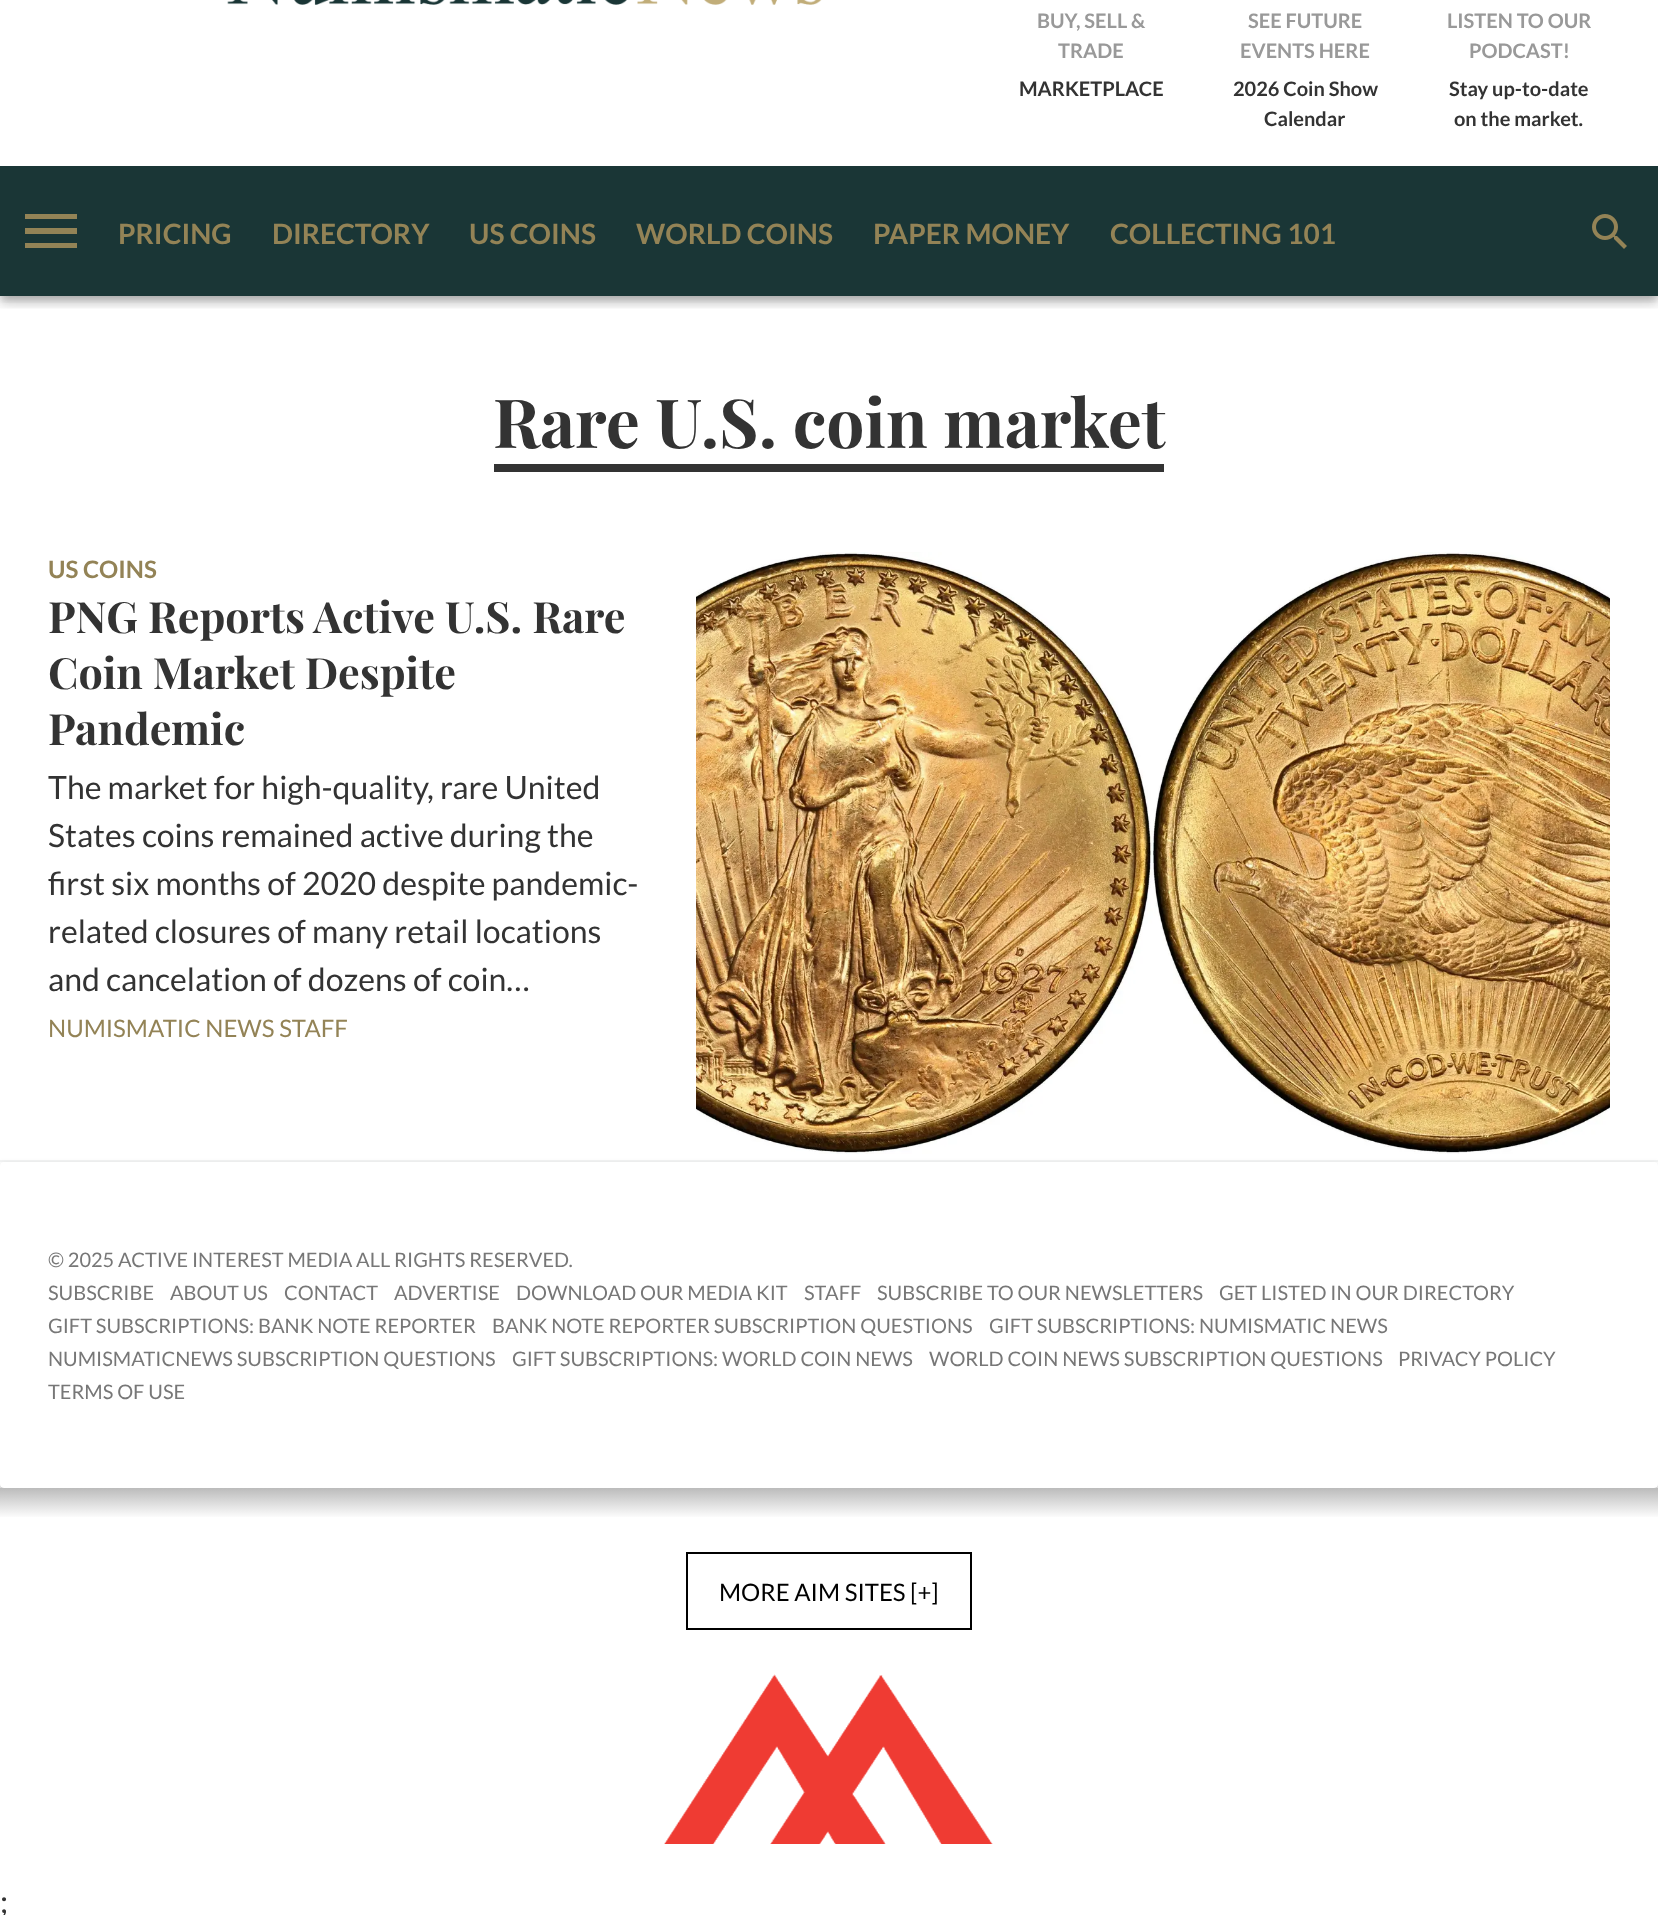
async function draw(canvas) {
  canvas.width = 1658
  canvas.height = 1915
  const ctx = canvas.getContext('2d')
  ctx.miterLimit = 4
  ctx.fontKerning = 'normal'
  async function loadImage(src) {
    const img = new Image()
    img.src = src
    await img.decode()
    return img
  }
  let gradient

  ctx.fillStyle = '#fff'
  ctx.fillRect(0, 0, 1658, 1915)
  ctx.save()
  ctx.beginPath()
  ctx.rect(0, 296, 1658, 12)
  ctx.clip()
  ctx.fillStyle = '#0000001f'
  ctx.filter = 'blur(10px)'
  ctx.beginPath()
  ctx.rect(0, -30, 1658, 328)
  ctx.fill()
  ctx.filter = 'none'
  ctx.restore()
  ctx.save()
  ctx.beginPath()
  ctx.rect(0, 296, 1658, 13)
  ctx.clip()
  ctx.fillStyle = '#00000024'
  ctx.filter = 'blur(5px)'
  ctx.beginPath()
  ctx.rect(0, -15, 1658, 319)
  ctx.fill()
  ctx.filter = 'none'
  ctx.restore()
  ctx.save()
  ctx.beginPath()
  ctx.rect(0, 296, 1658, 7)
  ctx.clip()
  ctx.fillStyle = '#00000033'
  ctx.filter = 'blur(4px)'
  ctx.beginPath()
  ctx.rect(2, -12, 1654, 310)
  ctx.fill()
  ctx.filter = 'none'
  ctx.restore()
  ctx.drawImage(await loadImage('image0.png'), 227, 0, 595, 5)
  ctx.font = 'bold 20px Lato'
  ctx.fillStyle = '#999'
  ctx.fillText('BUY, SELL &', 1037, 28)
  ctx.fillText('TRADE', 1058, 58)
  ctx.fillStyle = '#333'
  ctx.fillText('MARKETPLACE', 1019, 96)
  ctx.fillStyle = '#999'
  ctx.fillText('SEE FUTURE', 1248, 28)
  ctx.fillText('EVENTS HERE', 1240, 58)
  ctx.fillStyle = '#333'
  ctx.fillText('2026 Coin Show', 1233, 96)
  ctx.fillText('Calendar', 1264, 126)
  ctx.fillStyle = '#999'
  ctx.fillText('LISTEN TO OUR', 1447, 28)
  ctx.fillText('PODCAST!', 1469, 58)
  ctx.fillStyle = '#333'
  ctx.fillText('Stay up-to-date', 1449, 96)
  ctx.fillText('on the market.', 1454, 126)
  ctx.fillStyle = '#1a3636'
  ctx.fillRect(0, 166, 1658, 130)
  ctx.fillStyle = '#938356'
  ctx.beginPath()
  ctx.moveTo(25, 248)
  ctx.lineTo(77, 248)
  ctx.lineTo(77, 243)
  ctx.lineTo(25, 243)
  ctx.closePath()
  ctx.moveTo(25, 234)
  ctx.lineTo(77, 234)
  ctx.lineTo(77, 228)
  ctx.lineTo(25, 228)
  ctx.closePath()
  ctx.moveTo(25, 214)
  ctx.lineTo(25, 219)
  ctx.lineTo(77, 219)
  ctx.lineTo(77, 214)
  ctx.closePath()
  ctx.fill()
  ctx.font = 'bold 28px Lato'
  ctx.fillText('PRICING', 118, 244)
  ctx.fillText('DIRECTORY', 272, 244)
  ctx.fillText('US COINS', 469, 244)
  ctx.fillText('WORLD COINS', 636, 244)
  ctx.fillText('PAPER MONEY', 873, 244)
  ctx.fillText('COLLECTING 101', 1110, 244)
  ctx.drawImage(await loadImage('image1.png'), 1592, 214, 35, 35)
  ctx.fillStyle = '#333'
  ctx.fillRect(494, 464, 670, 8)
  ctx.font = 'bold 67.75px Playfair Display'
  ctx.fillText('Rare U.S. coin market', 493, 448)
  ctx.font = 'bold 24px Lato'
  ctx.fillStyle = '#938356'
  ctx.fillText('US COINS', 48, 578)
  ctx.font = 'bold 43.1px Playfair Display'
  ctx.fillStyle = '#333'
  ctx.fillText('PNG Reports Active U.S. Rare', 48, 633)
  ctx.fillText('Coin Market Despite', 48, 689)
  ctx.fillText('Pandemic', 48, 745)
  ctx.font = '32px Lato'
  ctx.fillText('The market for high-quality, rare United', 48, 799)
  ctx.fillText('States coins remained active during the', 48, 847)
  ctx.fillText('first six months of 2020 despite pandemic-', 48, 895)
  ctx.fillText('related closures of many retail locations', 48, 943)
  ctx.fillText('and cancelation of dozens of coin…', 48, 991)
  ctx.font = '24px Lato'
  ctx.fillStyle = '#938356'
  ctx.fillText('NUMISMATIC NEWS STAFF', 48, 1037)
  ctx.drawImage(await loadImage('image2.png'), 696, 552, 914, 602)
  ctx.fillStyle = '#f3f4f4'
  ctx.fillRect(0, 1160, 1658, 2)
  ctx.fillStyle = '#0000001f'
  ctx.filter = 'blur(3px)'
  ctx.beginPath()
  ctx.roundRect(0, 1164, 1658, 326, 4)
  ctx.fill()
  ctx.filter = 'none'
  ctx.fillStyle = '#00000024'
  ctx.filter = 'blur(1px)'
  ctx.beginPath()
  ctx.roundRect(0, 1164, 1658, 326, 4)
  ctx.fill()
  ctx.filter = 'none'
  ctx.fillStyle = '#00000033'
  ctx.filter = 'blur(1px)'
  ctx.beginPath()
  ctx.roundRect(2, 1168, 1654, 322, 2)
  ctx.fill()
  ctx.filter = 'none'
  ctx.fillStyle = '#fff'
  ctx.beginPath()
  ctx.roundRect(0, 1162, 1658, 326, 4)
  ctx.fill()
  ctx.font = '20px Lato'
  ctx.fillStyle = '#777'
  ctx.fillText('© 2025 ACTIVE INTEREST MEDIA ALL RIGHTS RESERVED.', 48, 1267)
  ctx.fillText('SUBSCRIBE', 48, 1300)
  ctx.fillText('ABOUT US', 170, 1300)
  ctx.fillText('CONTACT', 284, 1300)
  ctx.fillText('ADVERTISE', 394, 1300)
  ctx.fillText('DOWNLOAD OUR MEDIA KIT', 516, 1300)
  ctx.fillText('STAFF', 804, 1300)
  ctx.fillText('SUBSCRIBE TO OUR NEWSLETTERS', 877, 1300)
  ctx.fillText('GET LISTED IN OUR DIRECTORY', 1219, 1300)
  ctx.fillText('GIFT SUBSCRIPTIONS: BANK NOTE REPORTER', 48, 1333)
  ctx.fillText('BANK NOTE REPORTER SUBSCRIPTION QUESTIONS', 492, 1333)
  ctx.fillText('GIFT SUBSCRIPTIONS: NUMISMATIC NEWS', 989, 1333)
  ctx.fillText('NUMISMATICNEWS SUBSCRIPTION QUESTIONS', 48, 1366)
  ctx.fillText('GIFT SUBSCRIPTIONS: WORLD COIN NEWS', 512, 1366)
  ctx.fillText('WORLD COIN NEWS SUBSCRIPTION QUESTIONS', 929, 1366)
  ctx.fillText('PRIVACY POLICY', 1398, 1366)
  ctx.fillText('TERMS OF USE', 48, 1399)
  gradient = ctx.createLinearGradient(829, 1488, 829, 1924)
  gradient.addColorStop(0, '#bbb')
  gradient.addColorStop(0.07, '#fff')
  gradient.addColorStop(1, '#fff')
  ctx.fillStyle = gradient
  ctx.fillRect(0, 1488, 1658, 29)
  ctx.strokeStyle = '#000'
  ctx.lineWidth = 2
  ctx.strokeRect(687, 1553, 284, 76)
  ctx.font = '24px Lato'
  ctx.fillStyle = '#000'
  ctx.fillText('MORE AIM SITES [+]', 719, 1601)
  ctx.drawImage(await loadImage('image3.png'), 664, 1674, 329, 170)
  ctx.font = '32px Lato'
  ctx.fillStyle = '#333'
  ctx.fillText(';', 0, 1913)
}

draw(document.querySelector('canvas'))
